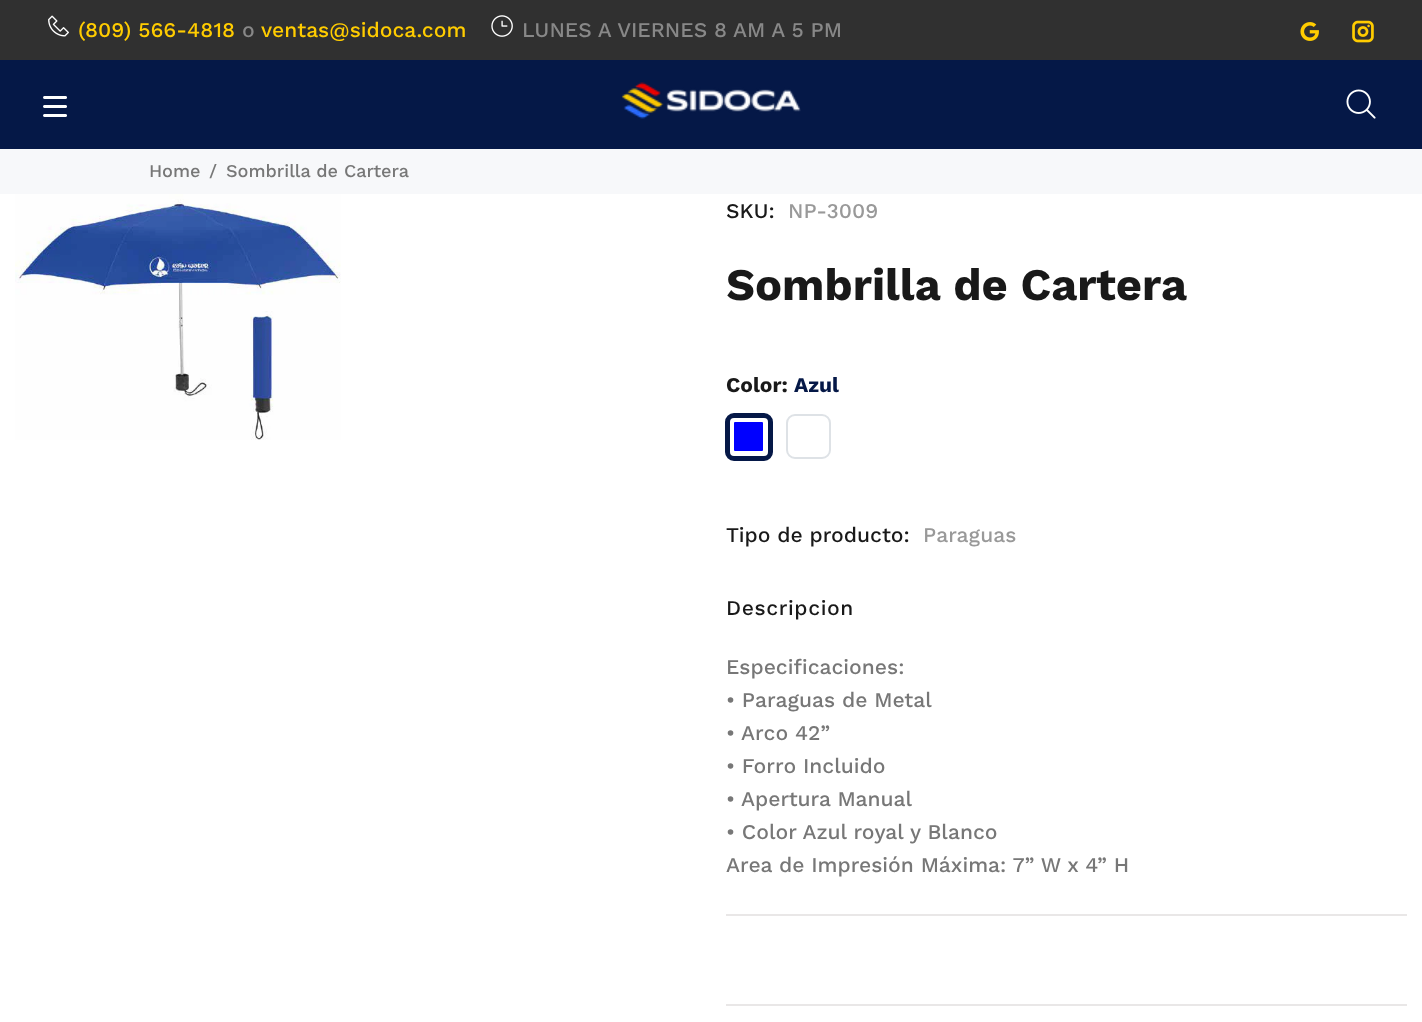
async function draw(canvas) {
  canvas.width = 1422
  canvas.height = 1022
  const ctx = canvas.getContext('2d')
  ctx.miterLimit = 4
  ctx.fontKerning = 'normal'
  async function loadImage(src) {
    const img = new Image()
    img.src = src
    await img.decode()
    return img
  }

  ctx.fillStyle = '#fff'
  ctx.fillRect(0, 0, 1422, 1022)
  ctx.fillStyle = '#051847'
  ctx.fillRect(0, 60, 1422, 89)
  ctx.fillStyle = '#303030'
  ctx.fillRect(0, 0, 1422, 60)
  ctx.drawImage(await loadImage('image0.png'), 48, 15, 21, 22)
  ctx.font = '500 21px Work Sans'
  ctx.fillStyle = '#fc0'
  ctx.fillText('(809) 566-4818', 78, 37)
  ctx.fillStyle = '#888'
  ctx.fillText('o', 242, 37)
  ctx.fillStyle = '#fc0'
  ctx.fillText('ventas@sidoca.com', 261, 37)
  ctx.drawImage(await loadImage('image1.png'), 491, 15, 22, 22)
  ctx.fillStyle = '#888'
  ctx.fillText('LUNES A VIERNES 8 AM A 5 PM', 522, 37)
  ctx.drawImage(await loadImage('image2.png'), 1300, 22, 19, 19)
  ctx.drawImage(await loadImage('image3.png'), 1352, 20, 22, 23)
  ctx.drawImage(await loadImage('image4.png'), 43, 96, 24, 21)
  ctx.drawImage(await loadImage('image5.png'), 621, 82, 180, 37)
  ctx.drawImage(await loadImage('image6.png'), 1346, 89, 30, 30)
  ctx.fillStyle = '#f7f8fa'
  ctx.fillRect(0, 149, 1422, 45)
  ctx.font = '500 18px Work Sans'
  ctx.fillStyle = '#777'
  ctx.fillText('Home', 149, 177)
  ctx.fillText('/', 209, 177)
  ctx.fillText('Sombrilla de Cartera', 226, 177)
  ctx.drawImage(await loadImage('image7.png'), 15, 194, 326, 246)
  ctx.font = '500 21px Work Sans'
  ctx.fillStyle = '#191919'
  ctx.fillText('SKU:', 726, 218)
  ctx.fillStyle = '#999'
  ctx.fillText('NP-3009', 788, 218)
  ctx.font = 'bold 45px Work Sans'
  ctx.fillStyle = '#191919'
  ctx.fillText('Sombrilla de Cartera', 726, 300)
  ctx.font = 'bold 21px Work Sans'
  ctx.fillText('Color:', 726, 392)
  ctx.fillStyle = '#051847'
  ctx.fillText('Azul', 794, 392)
  ctx.fillStyle = '#00f'
  ctx.beginPath()
  ctx.roundRect(730, 418, 37, 37, 5)
  ctx.fill()
  ctx.strokeStyle = '#fff'
  ctx.lineWidth = 8
  ctx.stroke()
  ctx.beginPath()
  ctx.roundRect(727.5, 415.5, 43, 43, 6.5)
  ctx.strokeStyle = '#051847'
  ctx.lineWidth = 5
  ctx.stroke()
  ctx.beginPath()
  ctx.roundRect(787, 415, 43, 43, 8)
  ctx.strokeStyle = '#dee2e6'
  ctx.lineWidth = 2
  ctx.stroke()
  ctx.font = '500 21px Work Sans'
  ctx.fillStyle = '#191919'
  ctx.fillText('Tipo de producto:', 726, 542)
  ctx.fillStyle = '#999'
  ctx.fillText('Paraguas', 923, 542)
  ctx.fillStyle = '#e9e7e7'
  ctx.fillRect(726, 914, 681, 2)
  ctx.letterSpacing = '0.6px'
  ctx.fillStyle = '#191919'
  ctx.fillText('Descripcion', 726, 615)
  ctx.letterSpacing = '0px'
  ctx.fillStyle = '#777'
  ctx.fillText('Especificaciones:', 726, 674)
  ctx.fillText('• Paraguas de Metal', 726, 707)
  ctx.fillText('• Arco 42”', 726, 740)
  ctx.fillText('• Forro Incluido', 726, 773)
  ctx.fillText('• Apertura Manual', 726, 806)
  ctx.fillText('• Color Azul royal y Blanco', 726, 839)
  ctx.fillText('Area de Impresión Máxima: 7” W x 4” H', 726, 872)
  ctx.fillStyle = '#e9e7e7'
  ctx.fillRect(726, 1004, 681, 2)
}

draw(document.querySelector('canvas'))
